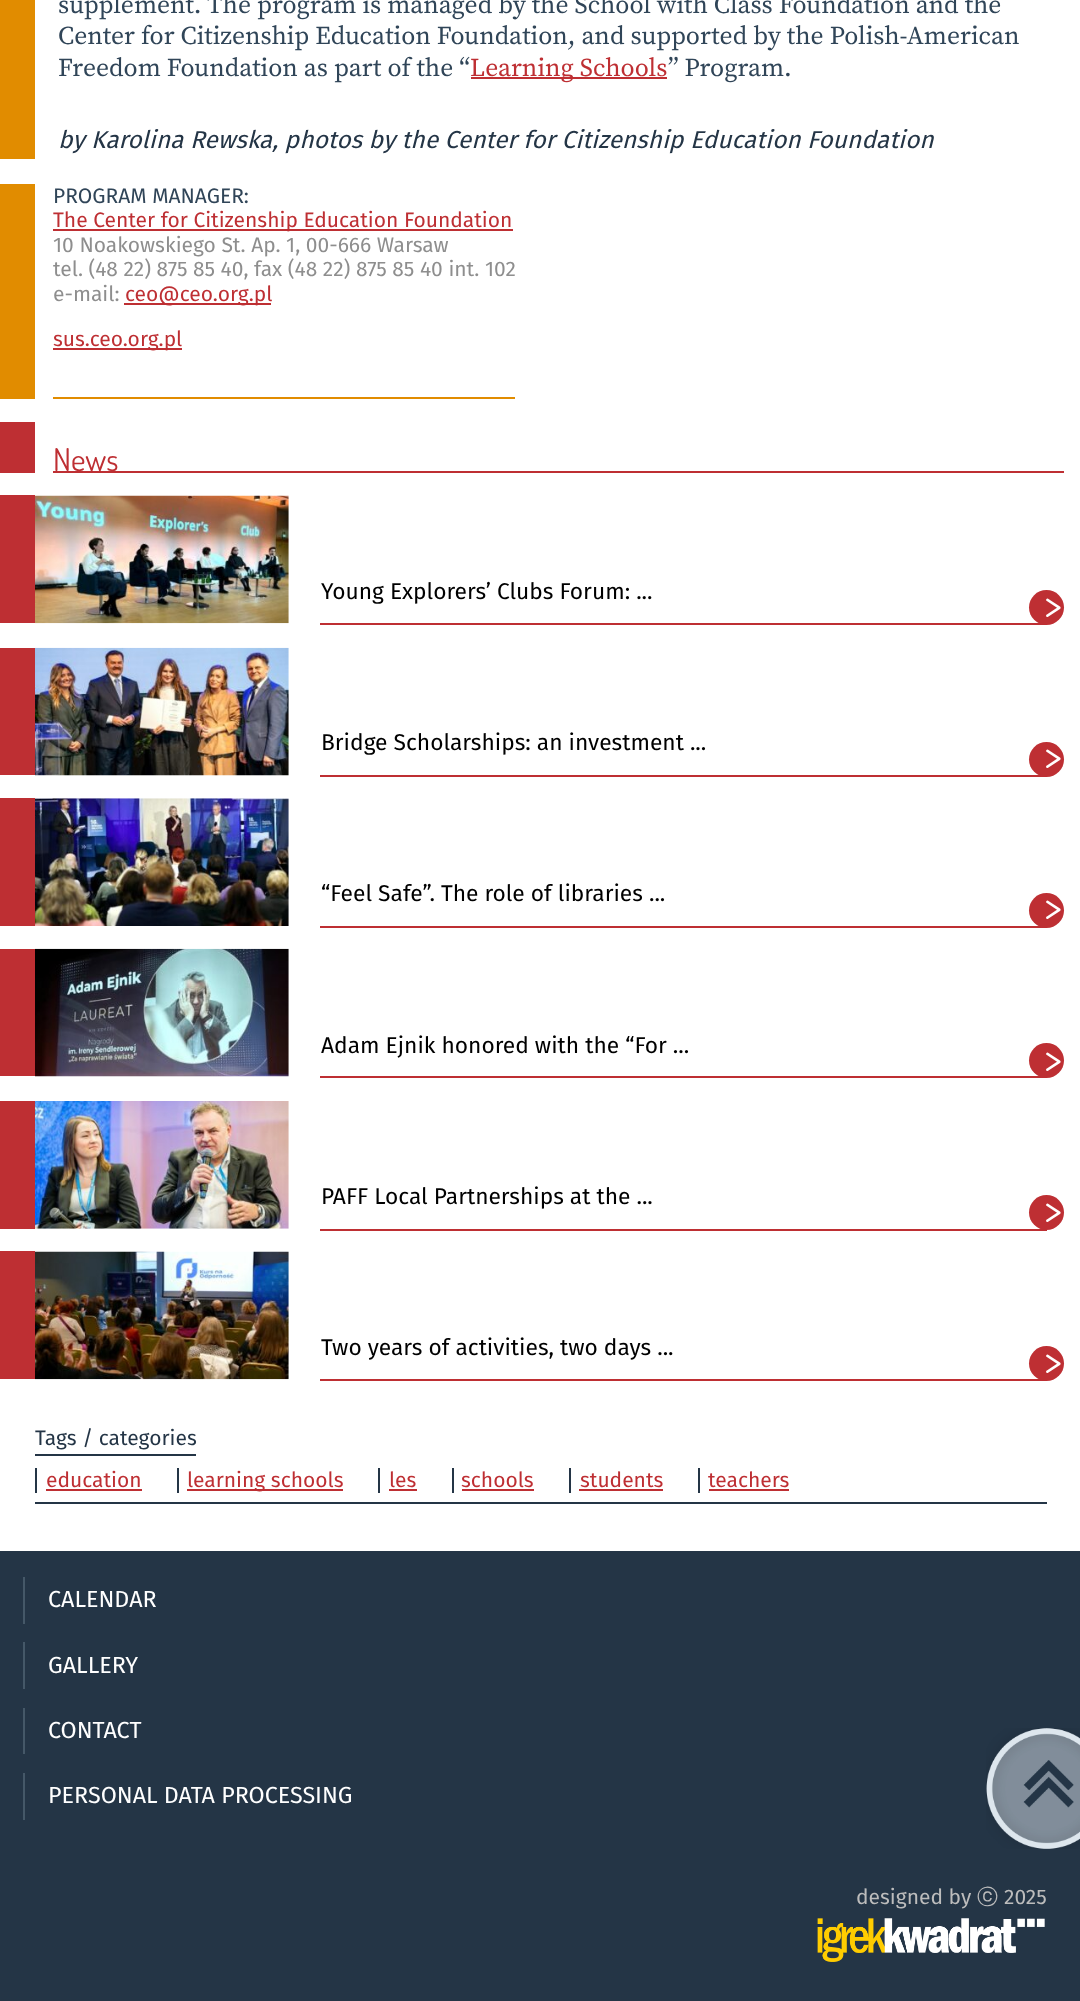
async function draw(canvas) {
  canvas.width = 1080
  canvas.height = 2001
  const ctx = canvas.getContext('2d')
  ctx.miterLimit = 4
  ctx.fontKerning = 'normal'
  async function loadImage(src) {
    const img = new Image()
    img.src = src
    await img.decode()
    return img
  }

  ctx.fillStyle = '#fff'
  ctx.fillRect(0, 0, 1080, 2001)
  ctx.font = '25.65px Source Serif Pro'
  ctx.fillStyle = '#304558'
  ctx.fillText('supplement. The program is managed by the School with Class Foundation and the', 58, 13)
  ctx.fillText('Center for Citizenship Education Foundation, and supported by the Polish-American', 58, 44)
  ctx.fillText('Freedom Foundation as part of the “', 58, 76)
  ctx.fillStyle = '#be2f33'
  ctx.fillRect(471, 77, 196, 2)
  ctx.fillText('Learning Schools', 470, 76)
  ctx.fillStyle = '#304558'
  ctx.fillText('” Program.', 668, 76)
  ctx.fillStyle = '#e18c00'
  ctx.fillRect(0, 0, 35, 159)
  ctx.font = 'italic 24.5px Fira Sans'
  ctx.fillStyle = '#243546'
  ctx.fillText('by Karolina Rewska, photos by the Center for Citizenship Education Foundation', 58, 148)
  ctx.fillStyle = '#e18c00'
  ctx.fillRect(0, 184, 35, 215)
  ctx.fillRect(53, 397, 462, 2)
  ctx.font = '21px Fira Sans'
  ctx.fillStyle = '#304558'
  ctx.fillText('PROGRAM MANAGER:', 53, 203)
  ctx.fillStyle = '#be2f33'
  ctx.fillRect(53, 229, 460, 2)
  ctx.fillText('The Center for Citizenship Education Foundation', 53, 227)
  ctx.fillStyle = '#8e8e8e'
  ctx.fillText('10 Noakowskiego St. Ap. 1, 00-666 Warsaw', 53, 252)
  ctx.fillText('tel. (48 22) 875 85 40, fax (48 22) 875 85 40 int. 102', 53, 276)
  ctx.fillText('e-mail:', 53, 301)
  ctx.fillStyle = '#be2f33'
  ctx.fillRect(124, 303, 147, 2)
  ctx.fillText('ceo@ceo.org.pl', 125, 301)
  ctx.fillRect(53, 348, 129, 2)
  ctx.fillText('sus.ceo.org.pl', 53, 346)
  ctx.fillRect(0, 422, 35, 51)
  ctx.fillRect(53, 471, 1011, 2)
  ctx.font = '31.5px Dosis'
  ctx.fillText('News', 53, 471)
  ctx.fillRect(0, 495, 35, 128)
  ctx.drawImage(await loadImage('image0.png'), 35, 495, 254, 129)
  ctx.font = '22.75px Fira Sans'
  ctx.fillStyle = '#000'
  ctx.fillText('Young Explorers’ Clubs Forum: ...', 321, 599)
  ctx.fillStyle = '#be2f33'
  ctx.fillRect(320, 623, 727, 2)
  ctx.beginPath()
  ctx.arc(1046.5, 607.5, 17.5, 0, 2 * Math.PI)
  ctx.fill()
  ctx.letterSpacing = '-9px'
  ctx.font = '44px Dosis'
  ctx.fillStyle = '#fff'
  ctx.fillText('>', 1044, 620)
  ctx.fillStyle = '#be2f33'
  ctx.fillRect(0, 648, 35, 127)
  ctx.drawImage(await loadImage('image1.png'), 35, 647, 254, 129)
  ctx.letterSpacing = '0px'
  ctx.font = '22.75px Fira Sans'
  ctx.fillStyle = '#000'
  ctx.fillText('Bridge Scholarships: an investment ...', 321, 750)
  ctx.fillStyle = '#be2f33'
  ctx.fillRect(320, 775, 727, 2)
  ctx.beginPath()
  ctx.arc(1046.5, 759.5, 17.5, 0, 2 * Math.PI)
  ctx.fill()
  ctx.letterSpacing = '-9px'
  ctx.font = '44px Dosis'
  ctx.fillStyle = '#fff'
  ctx.fillText('>', 1044, 771)
  ctx.fillStyle = '#be2f33'
  ctx.fillRect(0, 798, 35, 128)
  ctx.drawImage(await loadImage('image2.png'), 35, 798, 254, 128)
  ctx.letterSpacing = '0px'
  ctx.font = '22.75px Fira Sans'
  ctx.fillStyle = '#000'
  ctx.fillText('“Feel Safe”. The role of libraries ...', 321, 901)
  ctx.fillStyle = '#be2f33'
  ctx.fillRect(320, 926, 727, 2)
  ctx.beginPath()
  ctx.arc(1046.5, 910.5, 17.5, 0, 2 * Math.PI)
  ctx.fill()
  ctx.letterSpacing = '-9px'
  ctx.font = '44px Dosis'
  ctx.fillStyle = '#fff'
  ctx.fillText('>', 1044, 922)
  ctx.fillStyle = '#be2f33'
  ctx.fillRect(0, 949, 35, 127)
  ctx.drawImage(await loadImage('image3.png'), 35, 948, 254, 129)
  ctx.letterSpacing = '0px'
  ctx.font = '22.75px Fira Sans'
  ctx.fillStyle = '#000'
  ctx.fillText('Adam Ejnik honored with the “For ...', 321, 1053)
  ctx.fillStyle = '#be2f33'
  ctx.fillRect(320, 1076, 727, 2)
  ctx.beginPath()
  ctx.arc(1046.5, 1060.5, 17.5, 0, 2 * Math.PI)
  ctx.fill()
  ctx.letterSpacing = '-9px'
  ctx.font = '44px Dosis'
  ctx.fillStyle = '#fff'
  ctx.fillText('>', 1044, 1074)
  ctx.fillStyle = '#be2f33'
  ctx.fillRect(0, 1101, 35, 128)
  ctx.drawImage(await loadImage('image4.png'), 35, 1101, 254, 128)
  ctx.letterSpacing = '0px'
  ctx.font = '22.75px Fira Sans'
  ctx.fillStyle = '#000'
  ctx.fillText('PAFF Local Partnerships at the ...', 321, 1204)
  ctx.fillStyle = '#be2f33'
  ctx.fillRect(320, 1229, 727, 2)
  ctx.beginPath()
  ctx.arc(1046.5, 1212.5, 17.5, 0, 2 * Math.PI)
  ctx.fill()
  ctx.letterSpacing = '-9px'
  ctx.font = '44px Dosis'
  ctx.fillStyle = '#fff'
  ctx.fillText('>', 1044, 1225)
  ctx.fillStyle = '#be2f33'
  ctx.fillRect(0, 1251, 35, 128)
  ctx.drawImage(await loadImage('image5.png'), 35, 1251, 254, 129)
  ctx.letterSpacing = '0px'
  ctx.font = '22.75px Fira Sans'
  ctx.fillStyle = '#000'
  ctx.fillText('Two years of activities, two days ...', 321, 1355)
  ctx.fillStyle = '#be2f33'
  ctx.fillRect(320, 1379, 727, 2)
  ctx.beginPath()
  ctx.arc(1046.5, 1363.5, 17.5, 0, 2 * Math.PI)
  ctx.fill()
  ctx.letterSpacing = '-9px'
  ctx.font = '44px Dosis'
  ctx.fillStyle = '#fff'
  ctx.fillText('>', 1044, 1376)
  ctx.fillStyle = '#243546'
  ctx.fillRect(35, 1502, 1012, 2)
  ctx.letterSpacing = '0px'
  ctx.font = '21px Fira Sans'
  ctx.fillText('Tags / categories', 35, 1445)
  ctx.fillRect(35, 1454, 161, 2)
  ctx.fillRect(35, 1468, 2, 25)
  ctx.fillStyle = '#be2f33'
  ctx.fillText('education', 46, 1487)
  ctx.fillRect(46, 1489, 96, 2)
  ctx.fillStyle = '#243546'
  ctx.fillRect(177, 1468, 2, 25)
  ctx.fillStyle = '#be2f33'
  ctx.fillRect(187, 1489, 156, 2)
  ctx.fillText('learning schools', 187, 1487)
  ctx.fillStyle = '#243546'
  ctx.fillRect(378, 1468, 2, 25)
  ctx.fillStyle = '#be2f33'
  ctx.fillText('les', 389, 1487)
  ctx.fillRect(389, 1489, 28, 2)
  ctx.fillStyle = '#243546'
  ctx.fillRect(452, 1468, 2, 25)
  ctx.fillStyle = '#be2f33'
  ctx.fillText('schools', 461, 1487)
  ctx.fillRect(462, 1489, 72, 2)
  ctx.fillStyle = '#243546'
  ctx.fillRect(569, 1468, 2, 25)
  ctx.fillStyle = '#be2f33'
  ctx.fillText('students', 580, 1487)
  ctx.fillRect(579, 1489, 84, 2)
  ctx.fillStyle = '#243546'
  ctx.fillRect(698, 1468, 2, 25)
  ctx.fillStyle = '#be2f33'
  ctx.fillText('teachers', 708, 1487)
  ctx.fillRect(709, 1489, 80, 2)
  ctx.fillStyle = '#243546'
  ctx.fillRect(0, 1551, 1080, 450)
  ctx.font = '23.3px Fira Sans'
  ctx.fillStyle = '#fff'
  ctx.fillText('CALENDAR', 48, 1607)
  ctx.fillStyle = '#455868'
  ctx.fillRect(23, 1577, 2, 47)
  ctx.fillStyle = '#fff'
  ctx.fillText('GALLERY', 48, 1673)
  ctx.fillStyle = '#455868'
  ctx.fillRect(23, 1642, 2, 47)
  ctx.fillStyle = '#fff'
  ctx.fillText('CONTACT', 48, 1738)
  ctx.fillStyle = '#455868'
  ctx.fillRect(23, 1708, 2, 46)
  ctx.fillStyle = '#fff'
  ctx.fillText('PERSONAL DATA PROCESSING', 48, 1803)
  ctx.fillStyle = '#455868'
  ctx.fillRect(23, 1773, 2, 47)
  ctx.drawImage(await loadImage('image6.png'), 986, 1728, 94, 121)
  ctx.font = '21px Fira Sans'
  ctx.fillStyle = '#bcbcbc'
  ctx.fillText('designed by', 856, 1904)
  ctx.font = '500 21px WenQuanYi Zen Hei'
  ctx.fillText('ⓒ', 977, 1904)
  ctx.font = '21px Fira Sans'
  ctx.fillText('2025', 1004, 1904)
  ctx.drawImage(await loadImage('image7.png'), 817, 1918, 228, 44)
}

draw(document.querySelector('canvas'))
